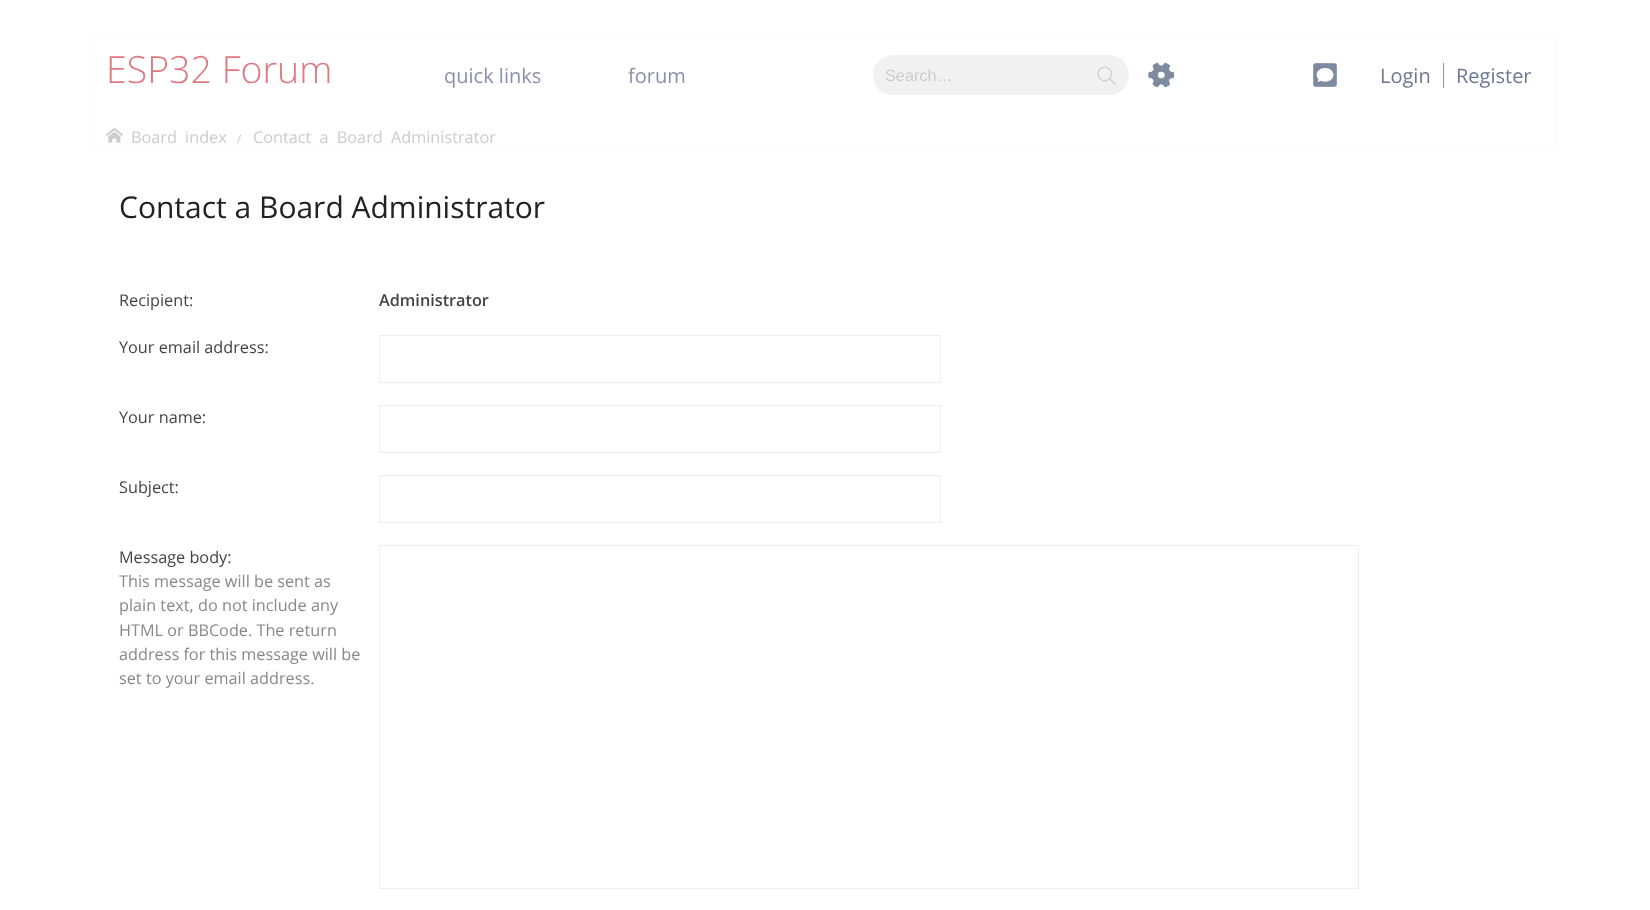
async function draw(canvas) {
  canvas.width = 1650
  canvas.height = 910
  const ctx = canvas.getContext('2d')
  ctx.miterLimit = 4
  ctx.fontKerning = 'normal'
  async function loadImage(src) {
    const img = new Image()
    img.src = src
    await img.decode()
    return img
  }

  ctx.fillStyle = '#fff'
  ctx.fillRect(0, 0, 1650, 910)
  ctx.fillStyle = '#f1f1f1'
  ctx.filter = 'blur(1px)'
  ctx.beginPath()
  ctx.rect(94, 38, 1462, 111)
  ctx.fill()
  ctx.filter = 'none'
  ctx.fillStyle = '#fff'
  ctx.fillRect(94, 38, 1462, 111)
  ctx.font = '300 37.5px Open Sans'
  ctx.fillStyle = '#df7980'
  ctx.fillText('ESP32 Forum', 106, 83)
  ctx.font = '20px Open Sans'
  ctx.fillStyle = '#8a90a9'
  ctx.fillText('quick links', 444, 83)
  ctx.fillText('forum', 628, 83)
  ctx.drawImage(await loadImage('image0.png'), 1313, 63, 24, 24)
  ctx.fillStyle = '#6c7891'
  ctx.fillText('Login', 1380, 83)
  ctx.fillStyle = '#8a90a9'
  ctx.fillRect(1443, 63, 1, 25)
  ctx.fillStyle = '#6c7891'
  ctx.fillText('Register', 1456, 83)
  ctx.fillStyle = '#f1f1f1'
  ctx.beginPath()
  ctx.roundRect(873, 55, 212, 40, [20, 0, 0, 20])
  ctx.fill()
  ctx.font = '16.25px Liberation Sans'
  ctx.fillStyle = '#ccc'
  ctx.fillText('Search…', 885, 81)
  ctx.fillStyle = '#f1f1f1'
  ctx.beginPath()
  ctx.roundRect(1085, 55, 44, 40, [0, 20, 20, 0])
  ctx.fill()
  ctx.drawImage(await loadImage('image1.png'), 1097, 66, 20, 20)
  ctx.drawImage(await loadImage('image2.png'), 1148, 62, 27, 26)
  ctx.drawImage(await loadImage('image3.png'), 106, 127, 17, 16)
  ctx.wordSpacing = '4px'
  ctx.font = '16.25px Open Sans'
  ctx.fillStyle = '#ccc'
  ctx.fillText('Board index', 131, 143)
  ctx.wordSpacing = '0px'
  ctx.font = '12px Open Sans'
  ctx.fillText('/', 237, 143)
  ctx.wordSpacing = '4px'
  ctx.font = '16.25px Open Sans'
  ctx.fillText('Contact a Board Administrator', 253, 143)
  ctx.wordSpacing = '0px'
  ctx.font = '30px Open Sans'
  ctx.fillStyle = '#222'
  ctx.fillText('Contact a Board Administrator', 119, 218)
  ctx.font = '16.25px Open Sans'
  ctx.fillStyle = '#444'
  ctx.fillText('Recipient:', 119, 306)
  ctx.font = '600 16.25px Open Sans'
  ctx.fillText('Administrator', 379, 306)
  ctx.font = '16.25px Open Sans'
  ctx.fillText('Your email address:', 119, 353)
  ctx.strokeStyle = '#eee'
  ctx.strokeRect(379.5, 335.5, 561, 47)
  ctx.fillText('Your name:', 119, 423)
  ctx.strokeRect(379.5, 405.5, 561, 47)
  ctx.fillText('Subject:', 119, 493)
  ctx.strokeRect(379.5, 475.5, 561, 47)
  ctx.fillText('Message body:', 119, 563)
  ctx.fillStyle = '#888'
  ctx.fillText('This message will be sent as', 119, 587)
  ctx.fillText('plain text, do not include any', 119, 611)
  ctx.fillText('HTML or BBCode. The return', 119, 636)
  ctx.fillText('address for this message will be', 119, 660)
  ctx.fillText('set to your email address.', 119, 684)
  ctx.strokeRect(379.5, 545.5, 979, 343)
}

draw(document.querySelector('canvas'))
